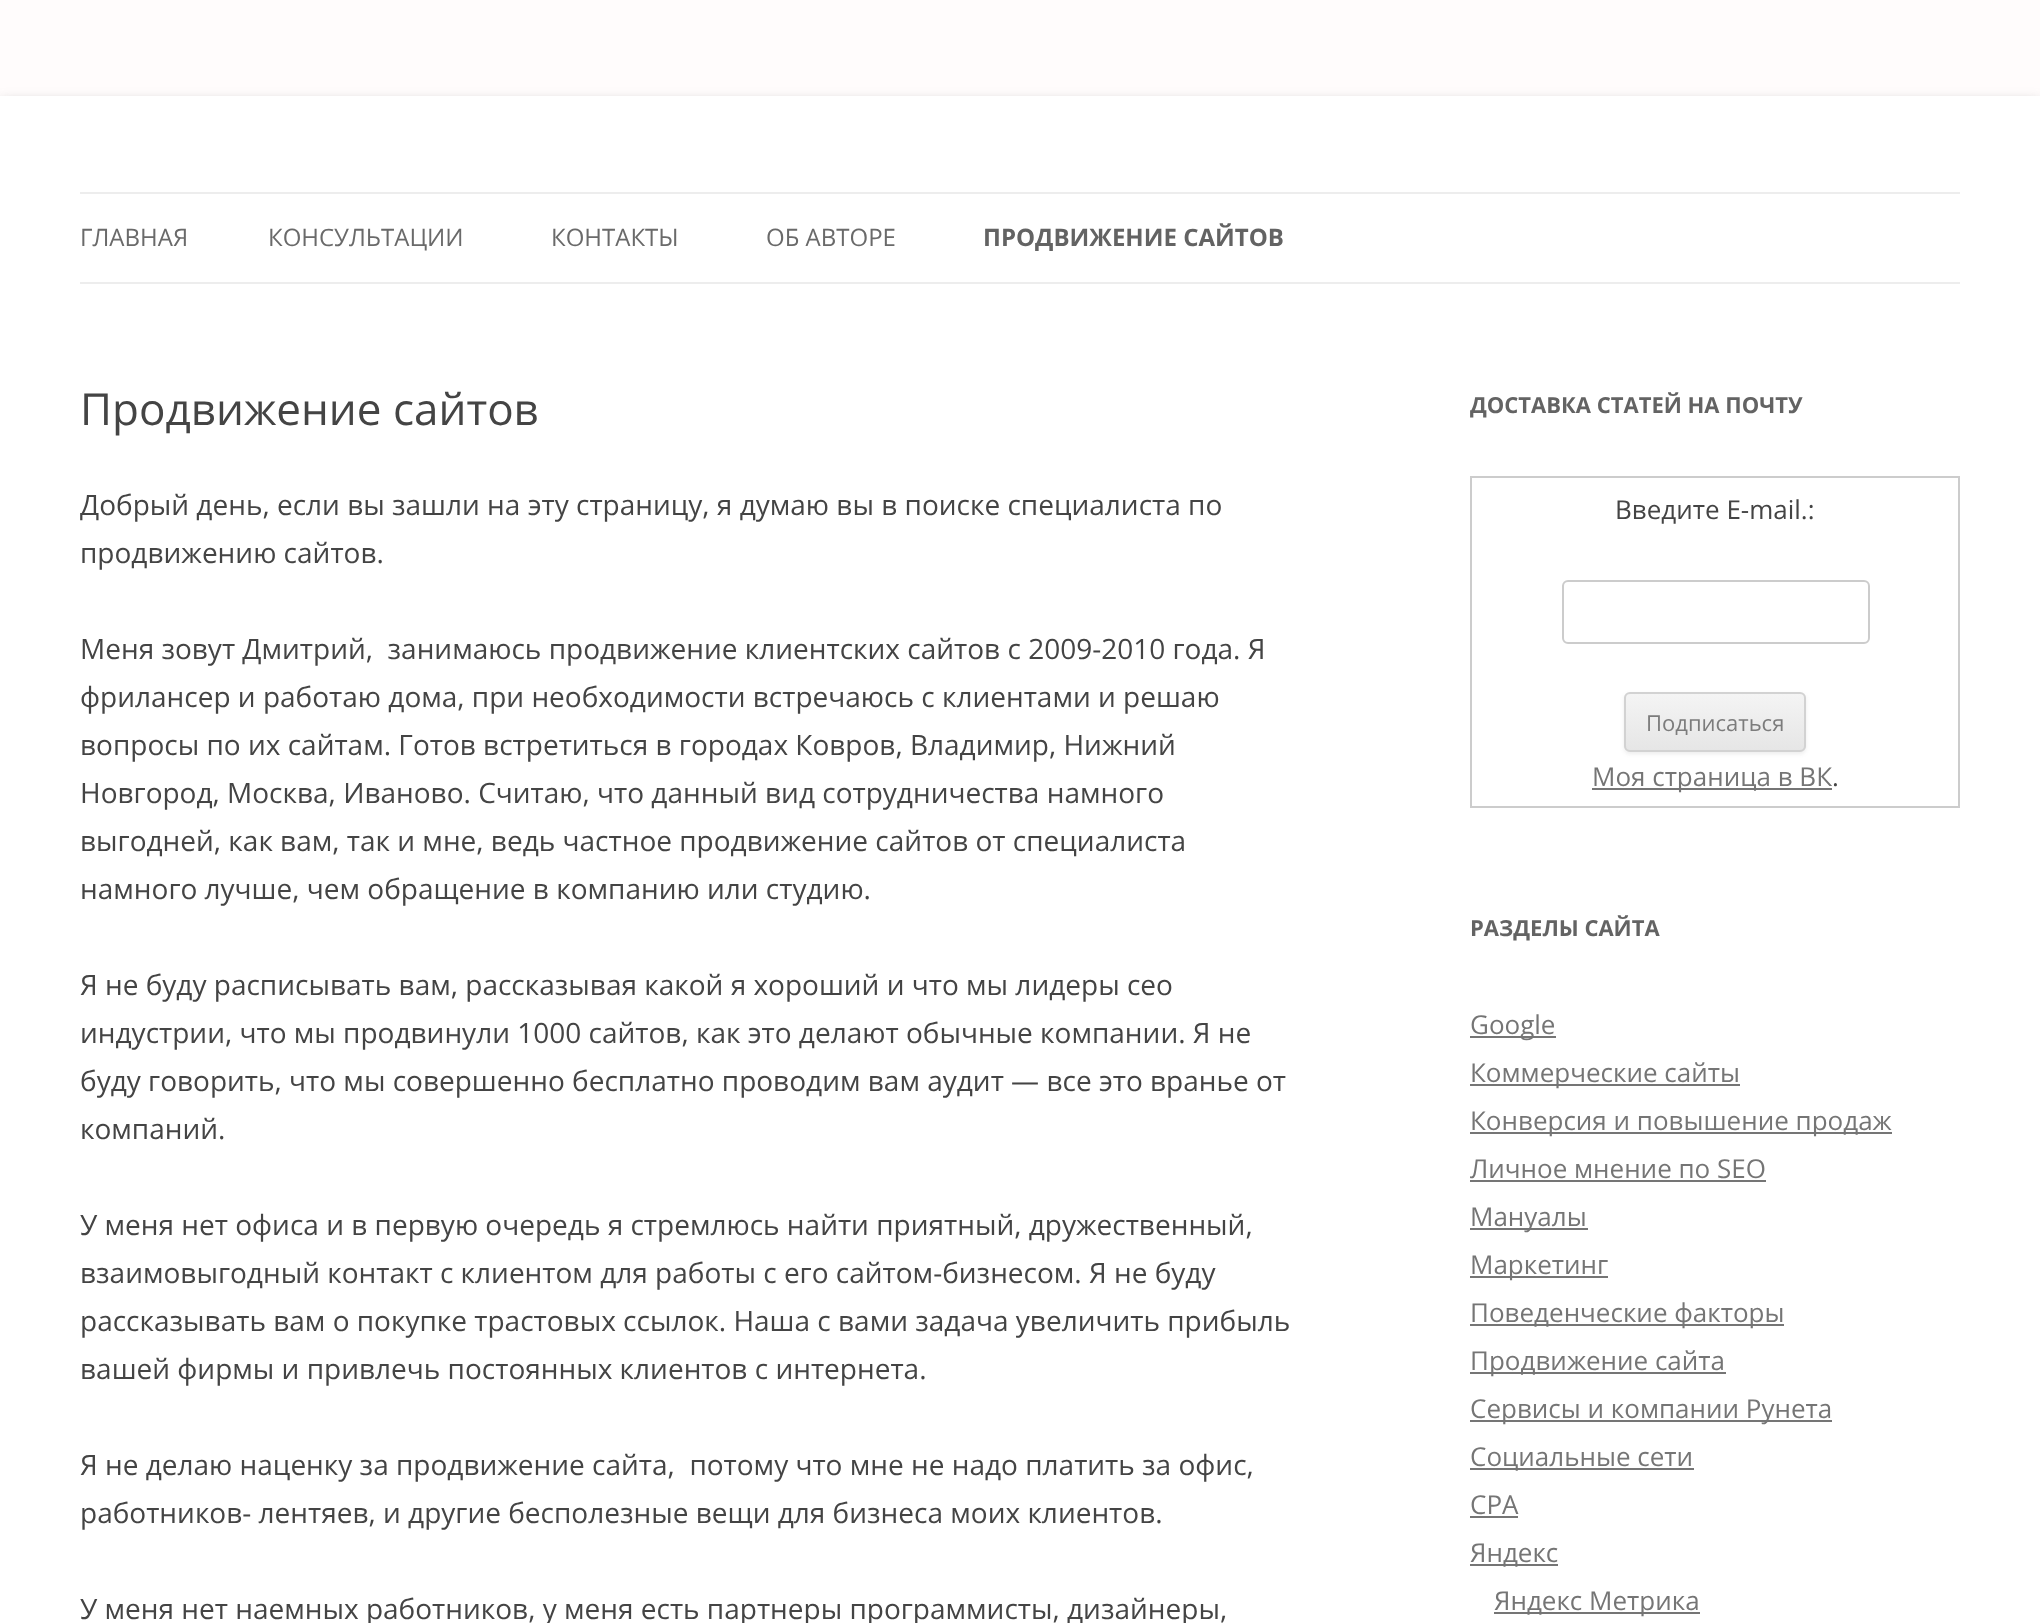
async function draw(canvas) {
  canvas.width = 2040
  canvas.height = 1623
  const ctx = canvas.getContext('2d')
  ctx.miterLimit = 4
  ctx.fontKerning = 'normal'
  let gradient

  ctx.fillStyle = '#fffcfc'
  ctx.fillRect(0, 0, 2040, 1623)
  ctx.fillStyle = '#6464644d'
  ctx.filter = 'blur(6px)'
  ctx.beginPath()
  ctx.rect(0, 100, 2040, 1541)
  ctx.fill()
  ctx.filter = 'none'
  ctx.fillStyle = '#fff'
  ctx.fillRect(0, 96, 2040, 1527)
  ctx.fillStyle = '#ededed'
  ctx.fillRect(80, 192, 1880, 2)
  ctx.fillRect(80, 282, 1880, 2)
  ctx.font = '24px Open Sans'
  ctx.fillStyle = '#6a6a6a'
  ctx.fillText('ГЛАВНАЯ', 80, 246)
  ctx.fillText('КОНСУЛЬТАЦИИ', 268, 246)
  ctx.fillText('КОНТАКТЫ', 551, 246)
  ctx.fillText('ОБ АВТОРЕ', 766, 246)
  ctx.font = 'bold 24px Open Sans'
  ctx.fillStyle = '#636363'
  ctx.fillText('ПРОДВИЖЕНИЕ САЙТОВ', 983, 246)
  ctx.font = '44px Open Sans'
  ctx.fillStyle = '#444'
  ctx.fillText('Продвижение сайтов', 80, 425)
  ctx.font = '28px Open Sans'
  ctx.fillText('Добрый день, если вы зашли на эту страницу, я думаю вы в поиске специалиста по', 80, 515)
  ctx.fillText('продвижению сайтов.', 80, 563)
  ctx.fillText('Меня зовут Дмитрий,  занимаюсь продвижение клиентских сайтов с 2009-2010 года. Я', 80, 659)
  ctx.fillText('фрилансер и работаю дома, при необходимости встречаюсь с клиентами и решаю', 80, 707)
  ctx.fillText('вопросы по их сайтам. Готов встретиться в городах Ковров, Владимир, Нижний', 80, 755)
  ctx.fillText('Новгород, Москва, Иваново. Считаю, что данный вид сотрудничества намного', 80, 803)
  ctx.fillText('выгодней, как вам, так и мне, ведь частное продвижение сайтов от специалиста', 80, 851)
  ctx.fillText('намного лучше, чем обращение в компанию или студию.', 80, 899)
  ctx.fillText('Я не буду расписывать вам, рассказывая какой я хороший и что мы лидеры сео', 80, 995)
  ctx.fillText('индустрии, что мы продвинули 1000 сайтов, как это делают обычные компании. Я не', 80, 1043)
  ctx.fillText('буду говорить, что мы совершенно бесплатно проводим вам аудит — все это вранье от', 80, 1091)
  ctx.fillText('компаний.', 80, 1139)
  ctx.fillText('У меня нет офиса и в первую очередь я стремлюсь найти приятный, дружественный,', 80, 1235)
  ctx.fillText('взаимовыгодный контакт с клиентом для работы с его сайтом-бизнесом. Я не буду', 80, 1283)
  ctx.fillText('рассказывать вам о покупке трастовых ссылок. Наша с вами задача увеличить прибыль', 80, 1331)
  ctx.fillText('вашей фирмы и привлечь постоянных клиентов с интернета.', 80, 1379)
  ctx.fillText('Я не делаю наценку за продвижение сайта,  потому что мне не надо платить за офис,', 80, 1475)
  ctx.fillText('работников- лентяев, и другие бесполезные вещи для бизнеса моих клиентов.', 80, 1523)
  ctx.fillText('У меня нет наемных работников, у меня есть партнеры программисты, дизайнеры,', 80, 1619)
  ctx.font = 'bold 22px Open Sans'
  ctx.fillStyle = '#636363'
  ctx.fillText('ДОСТАВКА СТАТЕЙ НА ПОЧТУ', 1470, 413)
  ctx.strokeStyle = '#ccc'
  ctx.lineWidth = 2
  ctx.strokeRect(1471, 477, 488, 330)
  ctx.font = '26px Open Sans'
  ctx.fillStyle = '#444'
  ctx.fillText('Введите E-mail.:', 1615, 519)
  ctx.beginPath()
  ctx.roundRect(1563, 581, 306, 62, 5)
  ctx.stroke()
  ctx.fillStyle = '#4040401a'
  ctx.filter = 'blur(2px)'
  ctx.beginPath()
  ctx.roundRect(1624, 694, 182, 60, 6)
  ctx.fill()
  ctx.filter = 'none'
  ctx.save()
  ctx.beginPath()
  ctx.roundRect(1624, 692, 182, 60, 6)
  ctx.clip()
  gradient = ctx.createLinearGradient(1715, 694, 1715, 750)
  gradient.addColorStop(0, '#f4f4f4')
  gradient.addColorStop(1, '#e6e6e6')
  ctx.fillStyle = gradient
  ctx.fillRect(1624, 694, 182, 56)
  ctx.restore()
  ctx.beginPath()
  ctx.roundRect(1625, 693, 180, 58, 5)
  ctx.strokeStyle = '#d2d2d2'
  ctx.stroke()
  ctx.font = '22px Open Sans'
  ctx.fillStyle = '#7c7c7c'
  ctx.fillText('Подписаться', 1646, 731)
  ctx.fillStyle = '#757575'
  ctx.fillRect(1592, 788, 240, 2)
  ctx.font = '26px Open Sans'
  ctx.fillText('Моя страница в ВК', 1592, 786)
  ctx.fillStyle = '#444'
  ctx.fillText('.', 1832, 786)
  ctx.font = 'bold 22px Open Sans'
  ctx.fillStyle = '#636363'
  ctx.fillText('РАЗДЕЛЫ САЙТА', 1470, 936)
  ctx.fillStyle = '#757575'
  ctx.fillRect(1470, 1036, 86, 2)
  ctx.font = '26px Open Sans'
  ctx.fillText('Google', 1470, 1034)
  ctx.fillRect(1470, 1084, 270, 2)
  ctx.fillText('Коммерческие сайты', 1470, 1082)
  ctx.fillRect(1470, 1132, 422, 2)
  ctx.fillText('Конверсия и повышение продаж', 1470, 1130)
  ctx.fillText('Личное мнение по SEO', 1470, 1178)
  ctx.fillRect(1470, 1180, 296, 2)
  ctx.fillRect(1470, 1228, 118, 2)
  ctx.fillText('Мануалы', 1470, 1226)
  ctx.fillRect(1470, 1276, 138, 2)
  ctx.fillText('Маркетинг', 1470, 1274)
  ctx.fillRect(1470, 1324, 314, 2)
  ctx.fillText('Поведенческие факторы', 1470, 1322)
  ctx.fillRect(1470, 1372, 256, 2)
  ctx.fillText('Продвижение сайта', 1470, 1370)
  ctx.fillRect(1470, 1420, 362, 2)
  ctx.fillText('Сервисы и компании Рунета', 1470, 1418)
  ctx.fillRect(1470, 1468, 224, 2)
  ctx.fillText('Социальные сети', 1470, 1466)
  ctx.fillText('СРА', 1470, 1514)
  ctx.fillRect(1470, 1516, 48, 2)
  ctx.fillRect(1470, 1564, 88, 2)
  ctx.fillText('Яндекс', 1470, 1562)
  ctx.fillRect(1494, 1612, 206, 2)
  ctx.fillText('Яндекс Метрика', 1494, 1610)
}

draw(document.querySelector('canvas'))
